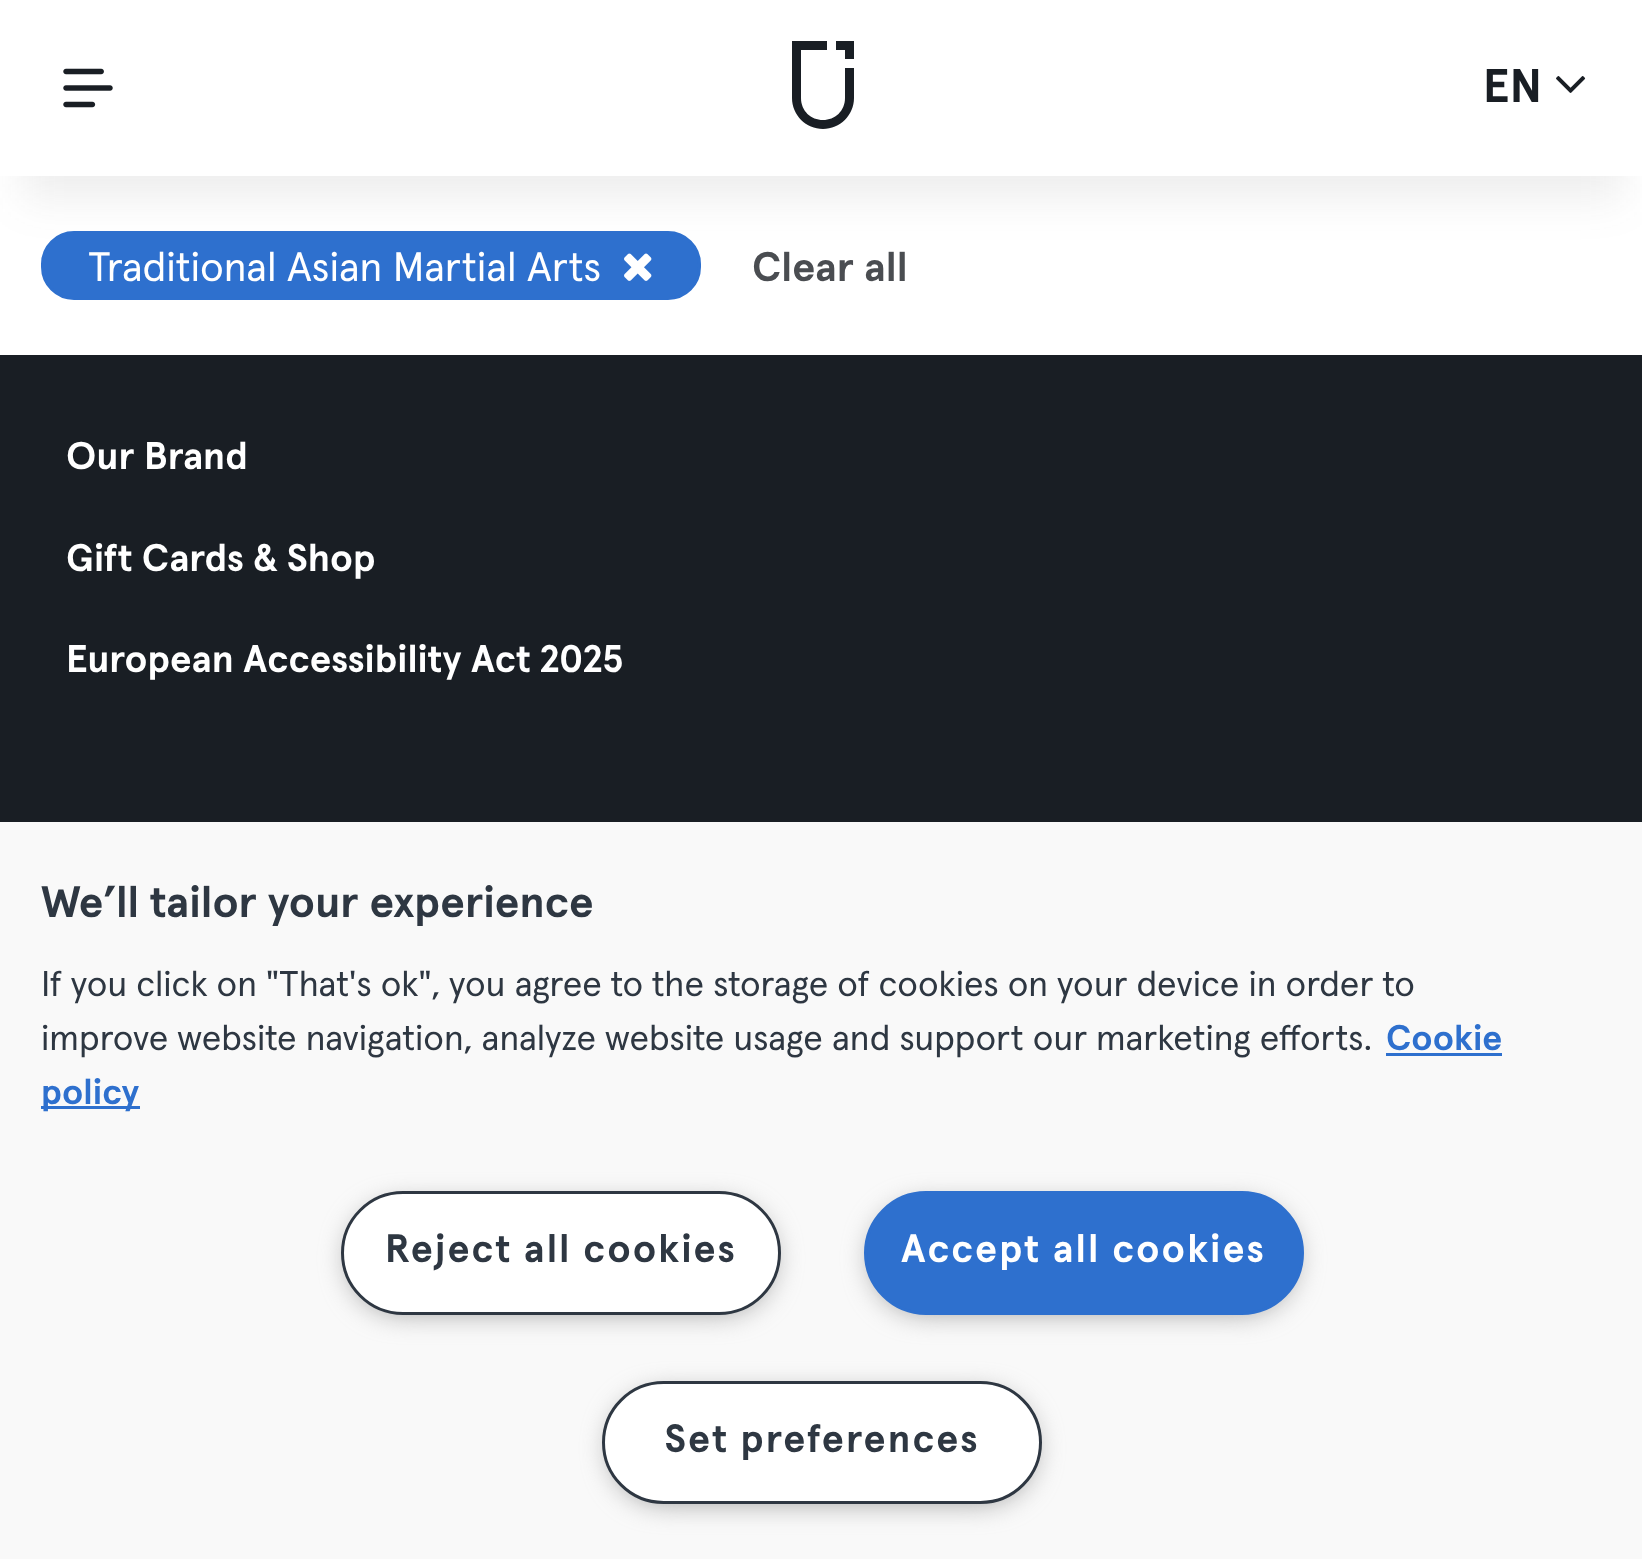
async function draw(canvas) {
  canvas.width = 1642
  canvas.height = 1559
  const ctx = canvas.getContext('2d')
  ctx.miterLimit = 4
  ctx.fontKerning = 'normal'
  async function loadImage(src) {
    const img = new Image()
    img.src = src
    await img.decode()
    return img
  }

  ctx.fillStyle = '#191e24'
  ctx.fillRect(0, 0, 1642, 1559)
  ctx.fillStyle = '#fff'
  ctx.fillRect(0, 176, 1642, 179)
  ctx.fillStyle = '#2e70ce'
  ctx.beginPath()
  ctx.roundRect(42.5, 232.5, 657, 66, 31.5)
  ctx.fill()
  ctx.strokeStyle = '#2e70ce'
  ctx.lineWidth = 3
  ctx.stroke()
  ctx.drawImage(await loadImage('image2.png'), 624, 253, 28, 28)
  ctx.fillStyle = '#4a4d511a'
  ctx.filter = 'blur(22px)'
  ctx.beginPath()
  ctx.rect(22, 66, 1601, 132)
  ctx.fill()
  ctx.filter = 'none'
  ctx.fillStyle = '#fff'
  ctx.fillRect(0, 0, 1642, 176)
  ctx.drawImage(await loadImage('image0.png'), 63, 68, 50, 40)
  ctx.fillStyle = '#191e24'
  ctx.beginPath()
  ctx.moveTo(854, 98)
  ctx.bezierCurveTo(854, 115, 840, 129, 823, 129)
  ctx.bezierCurveTo(806, 129, 792, 115, 792, 98)
  ctx.lineTo(792, 41)
  ctx.lineTo(827, 41)
  ctx.lineTo(827, 50)
  ctx.lineTo(801, 50)
  ctx.lineTo(801, 98)
  ctx.bezierCurveTo(801, 111, 811, 120, 823, 120)
  ctx.bezierCurveTo(835, 120, 845, 111, 845, 98)
  ctx.lineTo(845, 68)
  ctx.lineTo(854, 68)
  ctx.closePath()
  ctx.moveTo(836, 41)
  ctx.lineTo(836, 50)
  ctx.lineTo(845, 50)
  ctx.lineTo(845, 59)
  ctx.lineTo(854, 59)
  ctx.lineTo(854, 41)
  ctx.closePath()
  ctx.fill()
  ctx.font = 'bold 47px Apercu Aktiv'
  ctx.fillText('EN', 1483, 102)
  ctx.drawImage(await loadImage('image1.png'), 1556, 76, 30, 17)
  ctx.font = '41.25px Apercu Aktiv'
  ctx.fillStyle = '#fff'
  ctx.fillText('Traditional Asian Martial Arts', 88, 281)
  ctx.font = 'bold 41.25px Apercu Aktiv'
  ctx.fillStyle = '#4a4d51'
  ctx.fillText('Clear all', 752, 281)
  ctx.font = 'bold 38.5px Apercu Aktiv'
  ctx.fillStyle = '#fff'
  ctx.fillText('Our Brand', 66, 469)
  ctx.fillText('Gift Cards & Shop', 66, 571)
  ctx.fillText('European Accessibility Act 2025', 66, 672)
  ctx.fillStyle = '#f9f9f9'
  ctx.fillRect(0, 822, 1642, 737)
  ctx.font = 'bold 44px Apercu Aktiv'
  ctx.fillStyle = '#2e3742'
  ctx.fillText('We’ll tailor your experience', 41, 917)
  ctx.font = '35.75px Apercu Aktiv'
  ctx.fillText('If you click on "That\'s ok", you agree to the storage of cookies on your device in order to', 41, 996)
  ctx.fillText('improve website navigation, analyze website usage and support our marketing efforts.', 41, 1050)
  ctx.font = 'bold 35.75px Apercu Aktiv'
  ctx.fillStyle = '#2e70ce'
  ctx.fillText('Cookie', 1386, 1050)
  ctx.fillRect(1386, 1053, 116, 3)
  ctx.fillRect(41, 1106, 99, 3)
  ctx.fillText('policy', 41, 1104)
  ctx.fillStyle = '#999'
  ctx.filter = 'blur(14px)'
  ctx.beginPath()
  ctx.roundRect(349, 1205, 424, 107, 53.5)
  ctx.fill()
  ctx.filter = 'none'
  ctx.fillStyle = '#fff'
  ctx.beginPath()
  ctx.roundRect(342.5, 1192.5, 437, 121, 60.5)
  ctx.fill()
  ctx.strokeStyle = '#2e3742'
  ctx.stroke()
  ctx.letterSpacing = '2px'
  ctx.font = 'bold 39.5px Apercu Aktiv'
  ctx.fillStyle = '#2e3742'
  ctx.fillText('Reject all cookies', 385, 1262)
  ctx.fillStyle = '#999'
  ctx.filter = 'blur(14px)'
  ctx.beginPath()
  ctx.roundRect(872, 1205, 423, 107, 53.5)
  ctx.fill()
  ctx.filter = 'none'
  ctx.fillStyle = '#2e70ce'
  ctx.beginPath()
  ctx.roundRect(865.5, 1192.5, 437, 121, 60.5)
  ctx.fill()
  ctx.strokeStyle = '#2e70ce'
  ctx.stroke()
  ctx.fillStyle = '#fff'
  ctx.fillText('Accept all cookies', 901, 1262)
  ctx.fillStyle = '#999'
  ctx.filter = 'blur(14px)'
  ctx.beginPath()
  ctx.roundRect(611, 1394, 423, 108, 54)
  ctx.fill()
  ctx.filter = 'none'
  ctx.fillStyle = '#fff'
  ctx.beginPath()
  ctx.roundRect(603.5, 1382.5, 437, 120, 60)
  ctx.fill()
  ctx.strokeStyle = '#2e3742'
  ctx.stroke()
  ctx.fillStyle = '#2e3742'
  ctx.fillText('Set preferences', 665, 1452)
}

draw(document.querySelector('canvas'))
